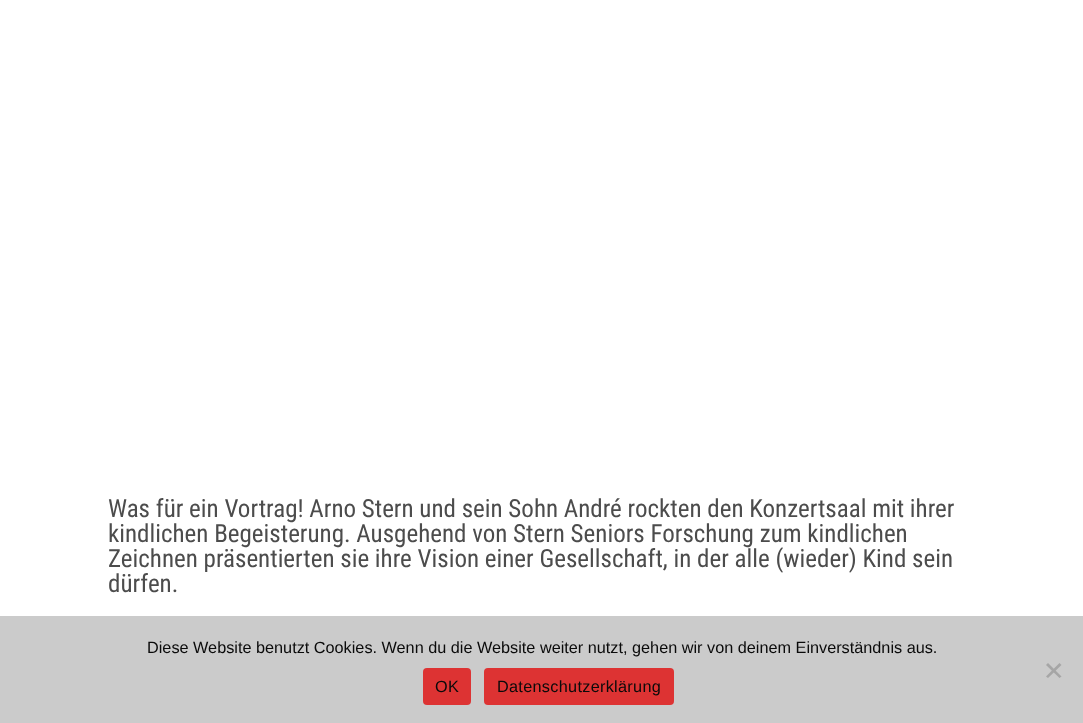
async function draw(canvas) {
  canvas.width = 1083
  canvas.height = 723
  const ctx = canvas.getContext('2d')
  ctx.miterLimit = 4
  ctx.fontKerning = 'normal'

  ctx.fillStyle = '#fff'
  ctx.fillRect(0, 0, 1083, 723)
  ctx.font = '25px Roboto Condensed'
  ctx.fillStyle = '#4c4c4c'
  ctx.fillText('Was für ein Vortrag! Arno Stern und sein Sohn André rockten den Konzertsaal mit ihrer', 108, 517)
  ctx.fillText('kindlichen Begeisterung. Ausgehend von Stern Seniors Forschung zum kindlichen', 108, 542)
  ctx.fillText('Zeichnen präsentierten sie ihre Vision einer Gesellschaft, in der alle (wieder) Kind sein', 108, 567)
  ctx.fillText('dürfen.', 108, 592)
  ctx.fillStyle = '#cbcbcb'
  ctx.fillRect(0, 616, 1083, 107)
  ctx.font = '16.25px Liberation Sans'
  ctx.fillStyle = '#0a0a0a'
  ctx.fillText('Diese Website benutzt Cookies. Wenn du die Website weiter nutzt, gehen wir von deinem Einverständnis aus.', 147, 653)
  ctx.fillStyle = '#a6a6a6'
  ctx.beginPath()
  ctx.moveTo(1059.5, 663)
  ctx.lineTo(1061.5, 665)
  ctx.lineTo(1048, 678)
  ctx.lineTo(1046, 676.5)
  ctx.closePath()
  ctx.fill()
  ctx.beginPath()
  ctx.moveTo(1046, 665)
  ctx.lineTo(1048, 663)
  ctx.lineTo(1061.5, 676.5)
  ctx.lineTo(1059.5, 678)
  ctx.closePath()
  ctx.fill()
  ctx.fillStyle = '#d33'
  ctx.beginPath()
  ctx.roundRect(423, 668, 48, 37, 4)
  ctx.fill()
  ctx.letterSpacing = '0.3px'
  ctx.fillStyle = '#0a0a0a'
  ctx.fillText('OK', 435, 692)
  ctx.fillStyle = '#d33'
  ctx.beginPath()
  ctx.roundRect(484, 668, 190, 37, 4)
  ctx.fill()
  ctx.fillStyle = '#0a0a0a'
  ctx.fillText('Datenschutzerklärung', 497, 692)
}

draw(document.querySelector('canvas'))
